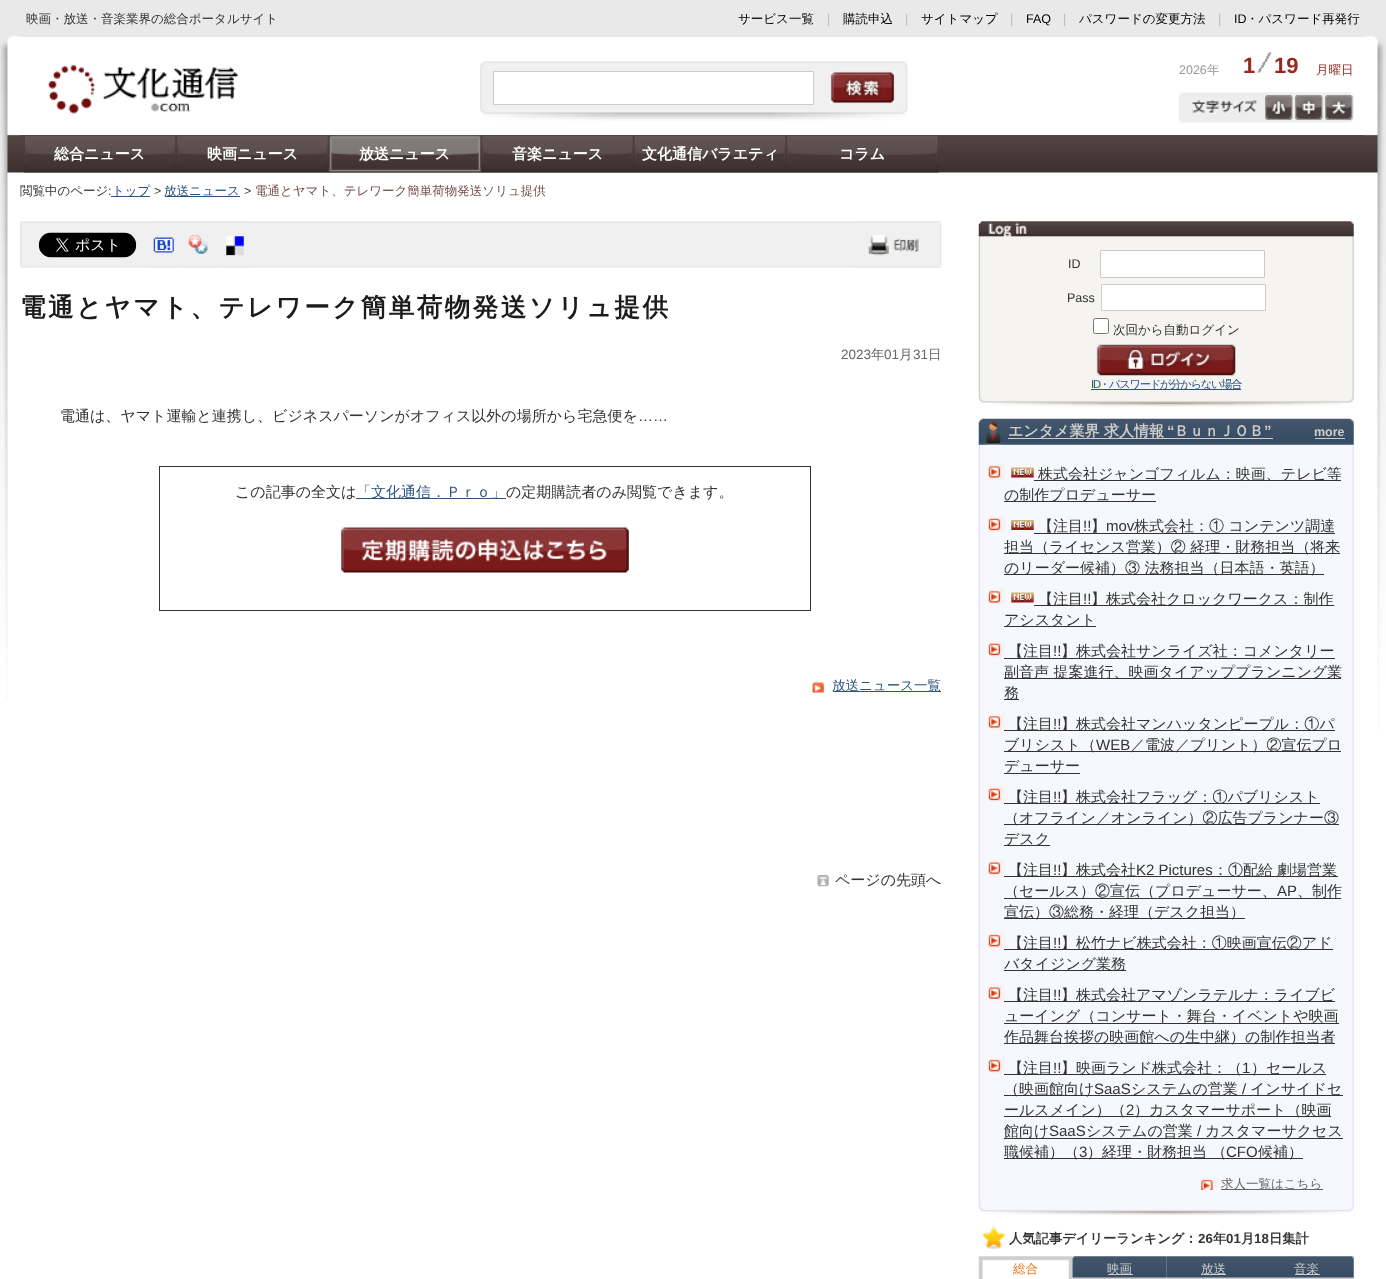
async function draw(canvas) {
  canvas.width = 1386
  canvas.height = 1279
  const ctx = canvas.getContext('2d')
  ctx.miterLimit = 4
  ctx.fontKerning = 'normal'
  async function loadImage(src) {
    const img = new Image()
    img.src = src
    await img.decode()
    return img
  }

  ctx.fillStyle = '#fff'
  ctx.fillRect(0, 0, 1386, 1279)
  ctx.fillStyle = '#e9e9e9'
  ctx.fillRect(0, 0, 1386, 37)
  ctx.font = '500 12.5px WenQuanYi Zen Hei'
  ctx.fillStyle = '#333'
  ctx.fillText('映画・放送・音楽業界の総合ポータルサイト', 26, 23)
  ctx.fillStyle = '#000'
  ctx.fillText('サービス一覧', 738, 23)
  ctx.font = '12.5px Liberation Sans'
  ctx.fillStyle = '#bbb'
  ctx.fillText('|', 827, 23)
  ctx.font = '500 12.5px WenQuanYi Zen Hei'
  ctx.fillStyle = '#000'
  ctx.fillText('購読申込', 843, 23)
  ctx.font = '12.5px Liberation Sans'
  ctx.fillStyle = '#bbb'
  ctx.fillText('|', 905, 23)
  ctx.font = '500 12.5px WenQuanYi Zen Hei'
  ctx.fillStyle = '#000'
  ctx.fillText('サイトマップ', 921, 23)
  ctx.font = '12.5px Liberation Sans'
  ctx.fillStyle = '#bbb'
  ctx.fillText('|', 1010, 23)
  ctx.fillStyle = '#000'
  ctx.fillText('FAQ', 1026, 23)
  ctx.fillStyle = '#bbb'
  ctx.fillText('|', 1063, 23)
  ctx.font = '500 12.5px WenQuanYi Zen Hei'
  ctx.fillStyle = '#000'
  ctx.fillText('パスワードの変更方法', 1079, 23)
  ctx.font = '12.5px Liberation Sans'
  ctx.fillStyle = '#bbb'
  ctx.fillText('|', 1218, 23)
  ctx.fillStyle = '#000'
  ctx.fillText('ID', 1234, 23)
  ctx.font = '500 12.5px WenQuanYi Zen Hei'
  ctx.fillText('・パスワード再発行', 1246, 23)
  ctx.drawImage(await loadImage('image0.png'), 0, 36, 20, 664)
  ctx.drawImage(await loadImage('image1.png'), 48, 64, 190, 50)
  ctx.drawImage(await loadImage('image2.png'), 480, 61, 428, 60)
  ctx.fillStyle = '#fff'
  ctx.beginPath()
  ctx.rect(493.5, 71.5, 320, 33)
  ctx.fill()
  ctx.strokeStyle = '#cbcbcb'
  ctx.stroke()
  ctx.drawImage(await loadImage('image3.png'), 830, 71, 65, 33)
  ctx.font = '12.5px Liberation Sans'
  ctx.fillStyle = '#989898'
  ctx.fillText('2026', 1179, 74)
  ctx.font = '500 12.5px WenQuanYi Zen Hei'
  ctx.fillText('年', 1207, 74)
  ctx.font = 'bold 22px Liberation Sans'
  ctx.fillStyle = '#972721'
  ctx.fillText('1', 1243, 73)
  ctx.drawImage(await loadImage('image4.png'), 1257, 52, 15, 21)
  ctx.fillText('19', 1274, 73)
  ctx.font = '500 12.5px WenQuanYi Zen Hei'
  ctx.fillText('月曜日', 1316, 74)
  ctx.drawImage(await loadImage('image5.png'), 1178, 92, 176, 31)
  ctx.drawImage(await loadImage('image6.png'), 1265, 95, 28, 25)
  ctx.drawImage(await loadImage('image7.png'), 1295, 95, 28, 25)
  ctx.drawImage(await loadImage('image8.png'), 1325, 95, 28, 25)
  ctx.drawImage(await loadImage('image9.png'), 1365, 36, 21, 694)
  ctx.drawImage(await loadImage('image10.png'), 20, 135, 1345, 38)
  ctx.drawImage(await loadImage('image11.png'), 23, 136, 154, 37)
  ctx.font = 'bold 15px WenQuanYi Zen Hei'
  ctx.fillStyle = '#fff'
  ctx.fillText('総合ニュース', 54, 159)
  ctx.drawImage(await loadImage('image12.png'), 176, 136, 153, 37)
  ctx.fillText('映画ニュース', 207, 159)
  ctx.drawImage(await loadImage('image13.png'), 328, 135, 154, 38)
  ctx.fillText('放送ニュース', 359, 159)
  ctx.drawImage(await loadImage('image14.png'), 481, 136, 153, 37)
  ctx.fillText('音楽ニュース', 512, 159)
  ctx.drawImage(await loadImage('image15.png'), 633, 136, 154, 37)
  ctx.fillText('文化通信バラエティ', 642, 159)
  ctx.drawImage(await loadImage('image16.png'), 786, 136, 153, 37)
  ctx.fillText('コラム', 839, 159)
  ctx.font = '500 12.5px WenQuanYi Zen Hei'
  ctx.fillStyle = '#333'
  ctx.fillText('閲覧中のページ', 20, 195)
  ctx.font = '12.5px Liberation Sans'
  ctx.fillText(':', 108, 195)
  ctx.fillStyle = '#2b547e'
  ctx.fillRect(111, 196, 39, 1)
  ctx.font = '500 12.5px WenQuanYi Zen Hei'
  ctx.fillText('トップ', 112, 195)
  ctx.font = '12.5px Liberation Sans'
  ctx.fillStyle = '#333'
  ctx.fillText('>', 154, 195)
  ctx.fillStyle = '#2b547e'
  ctx.fillRect(165, 196, 75, 1)
  ctx.font = '500 12.5px WenQuanYi Zen Hei'
  ctx.fillText('放送ニュース', 164, 195)
  ctx.font = '12.5px Liberation Sans'
  ctx.fillStyle = '#333'
  ctx.fillText('>', 244, 195)
  ctx.font = '500 12.5px WenQuanYi Zen Hei'
  ctx.fillStyle = '#734d4d'
  ctx.fillText('電通とヤマト、テレワーク簡単荷物発送ソリュ提供', 255, 195)
  ctx.drawImage(await loadImage('image17.png'), 20, 221, 922, 47)
  ctx.drawImage(await loadImage('image18.png'), 20, 221, 7, 47)
  ctx.drawImage(await loadImage('image19.png'), 38, 232, 99, 26)
  ctx.drawImage(await loadImage('image20.png'), 149, 221, 31, 47)
  ctx.drawImage(await loadImage('image21.png'), 184, 221, 31, 47)
  ctx.drawImage(await loadImage('image22.png'), 220, 221, 31, 47)
  ctx.drawImage(await loadImage('image23.png'), 854, 221, 80, 47)
  ctx.drawImage(await loadImage('image24.png'), 934, 221, 8, 47)
  ctx.letterSpacing = '2.5px'
  ctx.font = 'bold 25.5px WenQuanYi Zen Hei'
  ctx.fillStyle = '#1b1b1b'
  ctx.fillText('電通とヤマト、テレワーク簡単荷物発送ソリュ提供', 20, 316)
  ctx.letterSpacing = '0px'
  ctx.font = '13.5px Liberation Sans'
  ctx.fillStyle = '#666'
  ctx.fillText('2023', 841, 359)
  ctx.font = '500 13.5px WenQuanYi Zen Hei'
  ctx.fillText('年', 871, 359)
  ctx.font = '13.5px Liberation Sans'
  ctx.fillText('01', 884, 359)
  ctx.font = '500 13.5px WenQuanYi Zen Hei'
  ctx.fillText('月', 899, 359)
  ctx.font = '13.5px Liberation Sans'
  ctx.fillText('31', 913, 359)
  ctx.font = '500 13.5px WenQuanYi Zen Hei'
  ctx.fillText('日', 928, 359)
  ctx.font = '500 15px WenQuanYi Zen Hei'
  ctx.fillStyle = '#333'
  ctx.fillText('電通は、ヤマト運輸と連携し、ビジネスパーソンがオフィス以外の場所から宅急便を', 60, 421)
  ctx.font = '15px Liberation Sans'
  ctx.fillText('……', 638, 421)
  ctx.strokeStyle = '#333'
  ctx.strokeRect(159.5, 466.5, 651, 144)
  ctx.font = '500 15px WenQuanYi Zen Hei'
  ctx.fillText('この記事の全文は', 235, 497)
  ctx.fillStyle = '#2b547e'
  ctx.fillRect(356, 498, 150, 1)
  ctx.fillText('「文化通信．Ｐｒｏ」', 356, 497)
  ctx.fillStyle = '#333'
  ctx.fillText('の定期購読者のみ閲覧できます。', 506, 497)
  ctx.drawImage(await loadImage('image25.png'), 341, 527, 288, 46)
  ctx.drawImage(await loadImage('image26.png'), 812, 682, 12, 11)
  ctx.fillStyle = '#2b547e'
  ctx.fillRect(833, 691, 108, 1)
  ctx.font = '500 13.5px WenQuanYi Zen Hei'
  ctx.fillText('放送ニュース一覧', 832, 690)
  ctx.drawImage(await loadImage('image27.png'), 817, 875, 12, 12)
  ctx.font = '500 15px WenQuanYi Zen Hei'
  ctx.fillStyle = '#333'
  ctx.fillText('ページの先頭へ', 835, 885)
  ctx.drawImage(await loadImage('image28.png'), 978, 221, 376, 186)
  ctx.font = '12.5px Liberation Sans'
  ctx.fillText('ID', 1068, 268)
  ctx.fillStyle = '#fff'
  ctx.beginPath()
  ctx.rect(1100.5, 250.5, 164, 27)
  ctx.fill()
  ctx.strokeStyle = '#ccc'
  ctx.stroke()
  ctx.fillStyle = '#333'
  ctx.fillText('Pass', 1067, 302)
  ctx.fillStyle = '#fff'
  ctx.beginPath()
  ctx.rect(1101.5, 284.5, 164, 26)
  ctx.fill()
  ctx.stroke()
  ctx.beginPath()
  ctx.roundRect(1093.5, 318.5, 15, 15, 2)
  ctx.fill()
  ctx.strokeStyle = '#767676'
  ctx.stroke()
  ctx.font = '500 12.5px WenQuanYi Zen Hei'
  ctx.fillStyle = '#333'
  ctx.fillText('次回から自動ログイン', 1113, 334)
  ctx.drawImage(await loadImage('image29.png'), 1096, 344, 140, 32)
  ctx.letterSpacing = '-1.25px'
  ctx.font = '11.25px Liberation Sans'
  ctx.fillStyle = '#2b547e'
  ctx.fillText('ID', 1091, 388)
  ctx.fillRect(1091, 389, 150, 1)
  ctx.font = '500 11.25px WenQuanYi Zen Hei'
  ctx.fillText('・パスワードが分からない場合', 1099, 388)
  ctx.drawImage(await loadImage('image30.png'), 978, 418, 376, 27)
  ctx.fillStyle = '#ccc'
  ctx.fillRect(1008, 438, 265, 1)
  ctx.letterSpacing = '0px'
  ctx.font = 'bold 15px WenQuanYi Zen Hei'
  ctx.fillText('エンタメ業界 求人情報', 1008, 436)
  ctx.font = 'bold 15px Liberation Sans'
  ctx.fillText('“', 1167, 436)
  ctx.font = 'bold 15px WenQuanYi Zen Hei'
  ctx.fillText('ＢｕｎＪＯＢ', 1174, 436)
  ctx.font = 'bold 15px Liberation Sans'
  ctx.fillText('”', 1264, 436)
  ctx.font = 'bold 12.5px Liberation Sans'
  ctx.fillText('more', 1314, 436)
  ctx.fillRect(1315, 438, 30, 1)
  ctx.drawImage(await loadImage('image31.png'), 978, 445, 376, 757)
  ctx.drawImage(await loadImage('image32.png'), 988, 464, 17, 16)
  ctx.drawImage(await loadImage('image33.png'), 1011, 467, 23, 11)
  ctx.fillStyle = '#333'
  ctx.fillRect(1034, 480, 307, 1)
  ctx.font = '500 15px WenQuanYi Zen Hei'
  ctx.fillText('株式会社ジャンゴフィルム：映画、テレビ等', 1038, 479)
  ctx.fillRect(1004, 501, 152, 1)
  ctx.fillText('の制作プロデューサー', 1004, 500)
  ctx.drawImage(await loadImage('image34.png'), 988, 516, 17, 17)
  ctx.drawImage(await loadImage('image35.png'), 1011, 520, 23, 10)
  ctx.fillText('【注目', 1038, 531)
  ctx.font = '15px Liberation Sans'
  ctx.fillText('!!', 1083, 531)
  ctx.font = '500 15px WenQuanYi Zen Hei'
  ctx.fillText('】', 1091, 531)
  ctx.font = '15px Liberation Sans'
  ctx.fillText('mov', 1106, 531)
  ctx.fillRect(1034, 533, 301, 1)
  ctx.font = '500 15px WenQuanYi Zen Hei'
  ctx.fillText('株式会社：① コンテンツ調達', 1134, 531)
  ctx.fillRect(1004, 553, 336, 1)
  ctx.fillText('担当（ライセンス営業）② 経理・財務担当（将来', 1004, 552)
  ctx.fillRect(1004, 574, 320, 1)
  ctx.fillText('のリーダー候補）③ 法務担当（日本語・英語）', 1004, 573)
  ctx.drawImage(await loadImage('image32.png'), 988, 589, 17, 16)
  ctx.drawImage(await loadImage('image33.png'), 1011, 592, 23, 11)
  ctx.fillRect(1034, 605, 300, 1)
  ctx.fillText('【注目', 1038, 604)
  ctx.font = '15px Liberation Sans'
  ctx.fillText('!!', 1083, 604)
  ctx.font = '500 15px WenQuanYi Zen Hei'
  ctx.fillText('】株式会社クロックワークス：制作', 1091, 604)
  ctx.fillRect(1004, 626, 92, 1)
  ctx.fillText('アシスタント', 1004, 625)
  ctx.drawImage(await loadImage('image34.png'), 988, 641, 17, 17)
  ctx.fillText('【注目', 1008, 656)
  ctx.font = '15px Liberation Sans'
  ctx.fillText('!!', 1053, 656)
  ctx.fillRect(1004, 658, 331, 1)
  ctx.font = '500 15px WenQuanYi Zen Hei'
  ctx.fillText('】株式会社サンライズ社：コメンタリー', 1061, 656)
  ctx.fillRect(1004, 678, 337, 1)
  ctx.fillText('副音声 提案進行、映画タイアッププランニング業', 1004, 677)
  ctx.fillRect(1004, 699, 15, 1)
  ctx.fillText('務', 1004, 698)
  ctx.drawImage(await loadImage('image32.png'), 988, 714, 17, 16)
  ctx.fillRect(1004, 730, 331, 1)
  ctx.fillText('【注目', 1008, 729)
  ctx.font = '15px Liberation Sans'
  ctx.fillText('!!', 1053, 729)
  ctx.font = '500 15px WenQuanYi Zen Hei'
  ctx.fillText('】株式会社マンハッタンピープル：①パ', 1061, 729)
  ctx.fillRect(1004, 751, 337, 1)
  ctx.fillText('ブリシスト（', 1004, 750)
  ctx.font = '15px Liberation Sans'
  ctx.fillText('WEB', 1096, 750)
  ctx.font = '500 15px WenQuanYi Zen Hei'
  ctx.fillText('／電波／プリント）②宣伝プロ', 1130, 750)
  ctx.fillRect(1004, 773, 76, 1)
  ctx.fillText('デューサー', 1004, 771)
  ctx.drawImage(await loadImage('image34.png'), 988, 786, 17, 17)
  ctx.fillRect(1004, 803, 316, 1)
  ctx.fillText('【注目', 1008, 802)
  ctx.font = '15px Liberation Sans'
  ctx.fillText('!!', 1053, 802)
  ctx.font = '500 15px WenQuanYi Zen Hei'
  ctx.fillText('】株式会社フラッグ：①パブリシスト', 1061, 802)
  ctx.fillRect(1004, 824, 335, 1)
  ctx.fillText('（オフライン／オンライン）②広告プランナー③', 1004, 823)
  ctx.fillRect(1004, 845, 46, 1)
  ctx.fillText('デスク', 1004, 844)
  ctx.drawImage(await loadImage('image36.png'), 988, 860, 17, 16)
  ctx.fillRect(1004, 876, 334, 1)
  ctx.fillText('【注目', 1008, 875)
  ctx.font = '15px Liberation Sans'
  ctx.fillText('!!', 1053, 875)
  ctx.font = '500 15px WenQuanYi Zen Hei'
  ctx.fillText('】株式会社', 1061, 875)
  ctx.font = '15px Liberation Sans'
  ctx.fillText('K2 Pictures', 1136, 875)
  ctx.font = '500 15px WenQuanYi Zen Hei'
  ctx.fillText('：①配給', 1213, 875)
  ctx.fillText('劇場営業', 1277, 875)
  ctx.fillRect(1004, 898, 337, 1)
  ctx.fillText('（セールス）②宣伝（プロデューサー、', 1004, 896)
  ctx.font = '15px Liberation Sans'
  ctx.fillText('AP', 1277, 896)
  ctx.font = '500 15px WenQuanYi Zen Hei'
  ctx.fillText('、制作', 1297, 896)
  ctx.fillRect(1004, 918, 241, 1)
  ctx.fillText('宣伝）③総務・経理（デスク担当）', 1004, 917)
  ctx.drawImage(await loadImage('image37.png'), 988, 932, 17, 17)
  ctx.fillRect(1004, 949, 329, 1)
  ctx.fillText('【注目', 1008, 948)
  ctx.font = '15px Liberation Sans'
  ctx.fillText('!!', 1053, 948)
  ctx.font = '500 15px WenQuanYi Zen Hei'
  ctx.fillText('】松竹ナビ株式会社：①映画宣伝②アド', 1061, 948)
  ctx.fillRect(1004, 970, 122, 1)
  ctx.fillText('バタイジング業務', 1004, 969)
  ctx.drawImage(await loadImage('image36.png'), 988, 985, 17, 16)
  ctx.fillRect(1004, 1001, 331, 1)
  ctx.fillText('【注目', 1008, 1000)
  ctx.font = '15px Liberation Sans'
  ctx.fillText('!!', 1053, 1000)
  ctx.font = '500 15px WenQuanYi Zen Hei'
  ctx.fillText('】株式会社アマゾンラテルナ：ライブビ', 1061, 1000)
  ctx.fillRect(1004, 1023, 335, 1)
  ctx.fillText('ューイング（コンサート・舞台・イベントや映画', 1004, 1021)
  ctx.fillRect(1004, 1043, 331, 1)
  ctx.fillText('作品舞台挨拶の映画館への生中継）の制作担当者', 1004, 1042)
  ctx.drawImage(await loadImage('image37.png'), 988, 1057, 17, 17)
  ctx.fillRect(1004, 1074, 322, 1)
  ctx.fillText('【注目', 1008, 1073)
  ctx.font = '15px Liberation Sans'
  ctx.fillText('!!', 1053, 1073)
  ctx.font = '500 15px WenQuanYi Zen Hei'
  ctx.fillText('】映画ランド株式会社：（', 1061, 1073)
  ctx.font = '15px Liberation Sans'
  ctx.fillText('1', 1242, 1073)
  ctx.font = '500 15px WenQuanYi Zen Hei'
  ctx.fillText('）セールス', 1251, 1073)
  ctx.fillRect(1004, 1095, 339, 1)
  ctx.fillText('（映画館向け', 1004, 1094)
  ctx.font = '15px Liberation Sans'
  ctx.fillText('SaaS', 1094, 1094)
  ctx.font = '500 15px WenQuanYi Zen Hei'
  ctx.fillText('システムの営業', 1131, 1094)
  ctx.font = '15px Liberation Sans'
  ctx.fillText('/', 1242, 1094)
  ctx.font = '500 15px WenQuanYi Zen Hei'
  ctx.fillText('インサイドセ', 1250, 1094)
  ctx.fillRect(1004, 1116, 327, 1)
  ctx.fillText('ールスメイン）（', 1004, 1115)
  ctx.font = '15px Liberation Sans'
  ctx.fillText('2', 1126, 1115)
  ctx.font = '500 15px WenQuanYi Zen Hei'
  ctx.fillText('）カスタマーサポート（映画', 1134, 1115)
  ctx.fillRect(1004, 1138, 339, 1)
  ctx.fillText('館向け', 1004, 1136)
  ctx.font = '15px Liberation Sans'
  ctx.fillText('SaaS', 1049, 1136)
  ctx.font = '500 15px WenQuanYi Zen Hei'
  ctx.fillText('システムの営業', 1086, 1136)
  ctx.font = '15px Liberation Sans'
  ctx.fillText('/', 1197, 1136)
  ctx.font = '500 15px WenQuanYi Zen Hei'
  ctx.fillText('カスタマーサクセス', 1205, 1136)
  ctx.fillRect(1004, 1158, 299, 1)
  ctx.fillText('職候補）（', 1004, 1157)
  ctx.font = '15px Liberation Sans'
  ctx.fillText('3', 1079, 1157)
  ctx.font = '500 15px WenQuanYi Zen Hei'
  ctx.fillText('）経理・財務担当 （', 1087, 1157)
  ctx.font = '15px Liberation Sans'
  ctx.fillText('CFO', 1226, 1157)
  ctx.font = '500 15px WenQuanYi Zen Hei'
  ctx.fillText('候補）', 1258, 1157)
  ctx.drawImage(await loadImage('image38.png'), 1201, 1177, 17, 13)
  ctx.fillStyle = '#666'
  ctx.fillRect(1221, 1189, 102, 1)
  ctx.font = '500 12.5px WenQuanYi Zen Hei'
  ctx.fillText('求人一覧はこちら', 1221, 1188)
  ctx.drawImage(await loadImage('image39.png'), 978, 1201, 376, 14)
  ctx.drawImage(await loadImage('image40.png'), 982, 1226, 24, 23)
  ctx.font = 'bold 13.3px WenQuanYi Zen Hei'
  ctx.fillStyle = '#333'
  ctx.fillText('人気記事デイリーランキング：', 1009, 1243)
  ctx.font = 'bold 13.3px Liberation Sans'
  ctx.fillText('26', 1198, 1243)
  ctx.font = 'bold 13.3px WenQuanYi Zen Hei'
  ctx.fillText('年', 1213, 1243)
  ctx.font = 'bold 13.3px Liberation Sans'
  ctx.fillText('01', 1226, 1243)
  ctx.font = 'bold 13.3px WenQuanYi Zen Hei'
  ctx.fillText('月', 1241, 1243)
  ctx.font = 'bold 13.3px Liberation Sans'
  ctx.fillText('18', 1254, 1243)
  ctx.font = 'bold 13.3px WenQuanYi Zen Hei'
  ctx.fillText('日集計', 1269, 1243)
  ctx.drawImage(await loadImage('image41.png'), 978, 1256, 95, 23)
  ctx.font = '500 12.5px WenQuanYi Zen Hei'
  ctx.fillStyle = '#ed7216'
  ctx.fillText('総合', 1013, 1273)
  ctx.drawImage(await loadImage('image42.png'), 1072, 1256, 95, 23)
  ctx.fillStyle = '#ccc'
  ctx.fillRect(1108, 1274, 25, 1)
  ctx.fillText('映画', 1107, 1273)
  ctx.drawImage(await loadImage('image43.png'), 1166, 1256, 94, 23)
  ctx.fillRect(1201, 1274, 25, 1)
  ctx.fillText('放送', 1201, 1273)
  ctx.drawImage(await loadImage('image44.png'), 1260, 1256, 94, 23)
  ctx.fillRect(1295, 1274, 25, 1)
  ctx.fillText('音楽', 1294, 1273)
}

draw(document.querySelector('canvas'))
